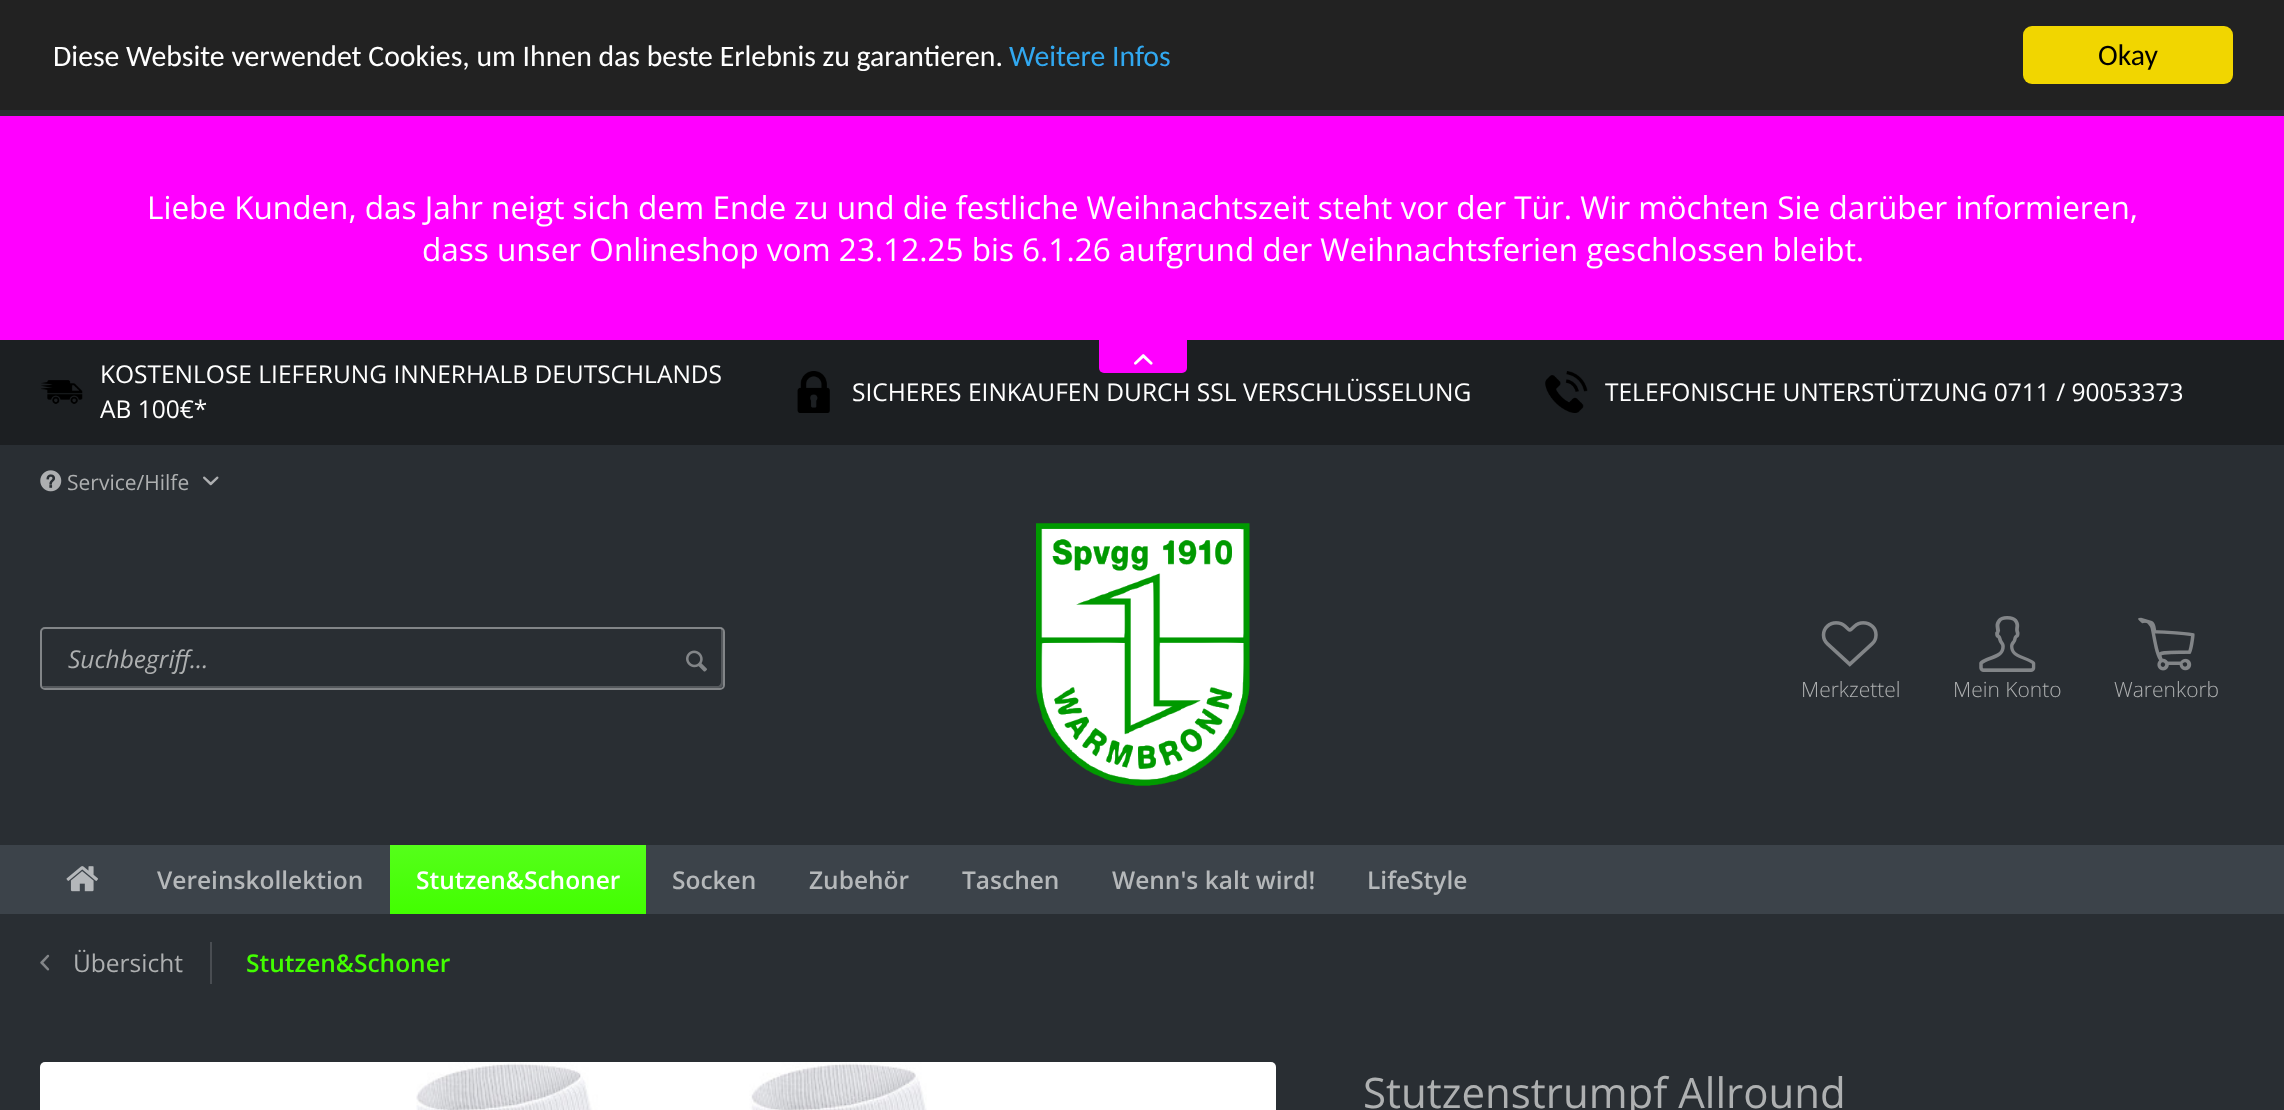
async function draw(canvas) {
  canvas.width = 2284
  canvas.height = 1110
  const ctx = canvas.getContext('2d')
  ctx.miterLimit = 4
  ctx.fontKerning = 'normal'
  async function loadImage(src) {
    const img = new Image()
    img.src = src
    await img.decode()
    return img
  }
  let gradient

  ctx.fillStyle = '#292e33'
  ctx.fillRect(0, 0, 2284, 1110)
  ctx.fillStyle = '#222'
  ctx.fillRect(0, 0, 2284, 110)
  ctx.font = '29.75px Carlito'
  ctx.fillStyle = '#fff'
  ctx.fillText('Diese Website verwendet Cookies, um Ihnen das beste Erlebnis zu garantieren.', 53, 66)
  ctx.fillStyle = '#31a8f0'
  ctx.fillText('Weitere Infos', 1009, 66)
  ctx.fillStyle = '#f1d600'
  ctx.beginPath()
  ctx.roundRect(2023, 26, 210, 58, 9)
  ctx.fill()
  ctx.fillStyle = '#000'
  ctx.fillText('Okay', 2098, 65)
  ctx.fillStyle = '#f0f'
  ctx.fillRect(0, 116, 2284, 224)
  ctx.font = '31.5px Open Sans'
  ctx.fillStyle = '#fff'
  ctx.fillText('Liebe Kunden, das Jahr neigt sich dem Ende zu und die festliche Weihnachtszeit steht vor der Tür. Wir möchten Sie darüber informieren,', 147, 219)
  ctx.fillText('dass unser Onlineshop vom 23.12.25 bis 6.1.26 aufgrund der Weihnachtsferien geschlossen bleibt.', 422, 261)
  ctx.fillStyle = '#1c1f22'
  ctx.fillRect(0, 340, 2284, 105)
  ctx.fillStyle = '#f0f'
  ctx.beginPath()
  ctx.roundRect(1099, 340, 88, 33, [0, 0, 5, 5])
  ctx.fill()
  ctx.drawImage(await loadImage('image0.png'), 1134, 354, 19, 11)
  ctx.drawImage(await loadImage('image1.png'), 41, 380, 42, 24)
  ctx.font = '24.5px Open Sans'
  ctx.fillStyle = '#fff'
  ctx.fillText('KOSTENLOSE LIEFERUNG INNERHALB DEUTSCHLANDS', 100, 383)
  ctx.fillText('AB 100€*', 100, 418)
  ctx.drawImage(await loadImage('image2.png'), 797, 371, 33, 42)
  ctx.fillText('SICHERES EINKAUFEN DURCH SSL VERSCHLÜSSELUNG', 852, 401)
  ctx.drawImage(await loadImage('image3.png'), 1545, 371, 43, 42)
  ctx.fillText('TELEFONISCHE UNTERSTÜTZUNG 0711 / 90053373', 1605, 401)
  ctx.drawImage(await loadImage('image4.png'), 40, 470, 22, 22)
  ctx.font = '21px Open Sans'
  ctx.fillStyle = '#aeb0b1'
  ctx.fillText('Service/Hilfe', 67, 490)
  ctx.drawImage(await loadImage('image5.png'), 203, 476, 16, 10)
  ctx.fillStyle = '#54585c'
  ctx.beginPath()
  ctx.moveTo(42, 686)
  ctx.bezierCurveTo(43, 687, 44, 688, 46, 688)
  ctx.lineTo(719, 688)
  ctx.bezierCurveTo(721, 688, 723, 686, 723, 684)
  ctx.lineTo(723, 632)
  ctx.bezierCurveTo(723, 630, 722, 629, 721, 628)
  ctx.lineTo(721, 630)
  ctx.lineTo(721, 682)
  ctx.bezierCurveTo(721, 684, 719, 686, 718, 686)
  ctx.lineTo(44, 686)
  ctx.closePath()
  ctx.fill()
  ctx.beginPath()
  ctx.roundRect(41, 628, 683, 61, 4)
  ctx.strokeStyle = '#ffffff6b'
  ctx.lineWidth = 2
  ctx.stroke()
  ctx.font = 'italic 24.5px Open Sans'
  ctx.fillStyle = '#aeb0b1'
  ctx.fillText('Suchbegriff...', 68, 668)
  ctx.drawImage(await loadImage('image6.png'), 686, 650, 21, 22)
  ctx.drawImage(await loadImage('image7.png'), 1036, 523, 214, 263)
  ctx.drawImage(await loadImage('image8.png'), 1821, 621, 57, 46)
  ctx.font = '300 21px Open Sans'
  ctx.fillText('Merkzettel', 1801, 697)
  ctx.drawImage(await loadImage('image9.png'), 1979, 616, 57, 56)
  ctx.fillText('Mein Konto', 1953, 697)
  ctx.drawImage(await loadImage('image10.png'), 2138, 617, 57, 54)
  ctx.fillText('Warenkorb', 2114, 697)
  ctx.fillStyle = '#3c434a'
  ctx.fillRect(0, 845, 2284, 69)
  ctx.drawImage(await loadImage('image11.png'), 66, 866, 32, 26)
  ctx.font = '600 24.5px Open Sans'
  ctx.fillStyle = '#b5b8ba'
  ctx.fillText('Vereinskollektion', 157, 889)
  gradient = ctx.createLinearGradient(518, 845, 518, 914)
  gradient.addColorStop(0, '#55ff1a')
  gradient.addColorStop(1, '#42ff00')
  ctx.fillStyle = gradient
  ctx.fillRect(390, 845, 256, 69)
  ctx.fillStyle = '#fff'
  ctx.fillText('Stutzen&Schoner', 416, 889)
  ctx.fillStyle = '#b5b8ba'
  ctx.fillText('Socken', 672, 889)
  ctx.fillText('Zubehör', 809, 889)
  ctx.fillText('Taschen', 962, 889)
  ctx.fillText('Wenn\'s kalt wird!', 1112, 889)
  ctx.fillText('LifeStyle', 1367, 889)
  ctx.drawImage(await loadImage('image12.png'), 40, 954, 10, 17)
  ctx.fillStyle = '#494d52'
  ctx.fillRect(210, 942, 2, 42)
  ctx.font = '24.5px Open Sans'
  ctx.fillStyle = '#aeb0b1'
  ctx.fillText('Übersicht', 73, 972)
  ctx.font = '600 24.5px Open Sans'
  ctx.fillStyle = '#42ff00'
  ctx.fillText('Stutzen&Schoner', 246, 972)
  ctx.fillStyle = '#fff'
  ctx.beginPath()
  ctx.roundRect(40, 1062, 1236, 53, 5)
  ctx.fill()
  ctx.drawImage(await loadImage('image13.png'), 416, 1062, 511, 48)
  ctx.font = '42px Open Sans'
  ctx.fillStyle = '#aeb0b1'
  ctx.fillText('Stutzenstrumpf Allround', 1363, 1108)
}

draw(document.querySelector('canvas'))
